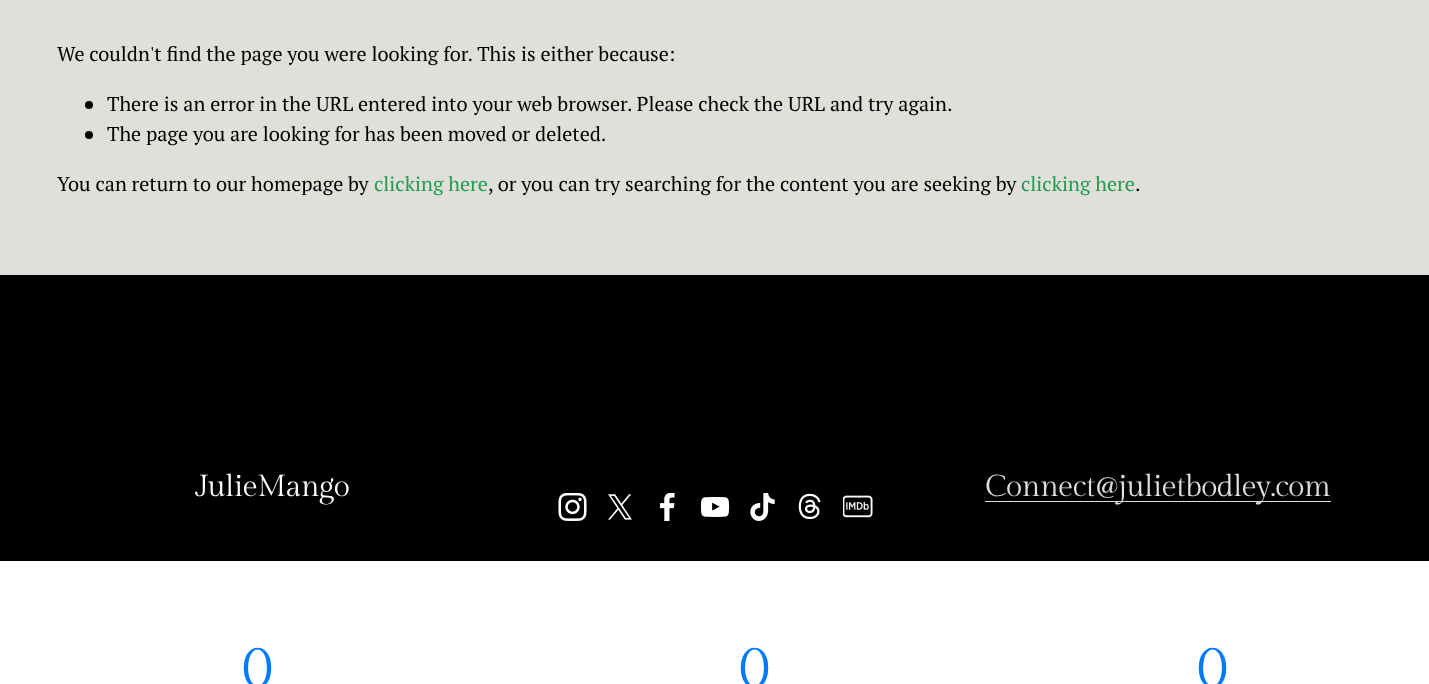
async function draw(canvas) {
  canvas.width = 1429
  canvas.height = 684
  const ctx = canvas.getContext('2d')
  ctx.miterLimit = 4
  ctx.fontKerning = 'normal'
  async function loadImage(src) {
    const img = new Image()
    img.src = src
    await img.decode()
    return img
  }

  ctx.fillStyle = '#e1dfd9'
  ctx.fillRect(0, 0, 1429, 684)
  ctx.font = '20px PT Serif'
  ctx.fillStyle = '#000'
  ctx.fillText('We couldn\'t find the page you were looking for. This is either because:', 57, 61)
  ctx.beginPath()
  ctx.arc(89, 105, 4, 0, 2 * Math.PI)
  ctx.fill()
  ctx.fillText('There is an error in the URL entered into your web browser. Please check the URL and try again.', 107, 111)
  ctx.beginPath()
  ctx.arc(89, 135, 4, 0, 2 * Math.PI)
  ctx.fill()
  ctx.fillText('The page you are looking for has been moved or deleted.', 107, 141)
  ctx.fillText('You can return to our homepage by', 57, 191)
  ctx.fillStyle = '#209d50'
  ctx.fillText('clicking here', 374, 191)
  ctx.fillStyle = '#000'
  ctx.fillText(', or you can try searching for the content you are seeking by', 488, 191)
  ctx.fillStyle = '#209d50'
  ctx.fillText('clicking here', 1021, 191)
  ctx.fillStyle = '#000'
  ctx.fillText('.', 1135, 191)
  ctx.fillRect(0, 275, 1429, 286)
  ctx.letterSpacing = '-0.6px'
  ctx.font = '30.25px Gilda Display'
  ctx.fillStyle = '#fff'
  ctx.fillText('JulieMango', 195, 496)
  ctx.drawImage(await loadImage('image0.png'), 558, 493, 29, 28)
  ctx.drawImage(await loadImage('image1.png'), 608, 494, 24, 26)
  ctx.drawImage(await loadImage('image2.png'), 660, 493, 15, 28)
  ctx.drawImage(await loadImage('image3.png'), 700, 497, 30, 20)
  ctx.drawImage(await loadImage('image4.png'), 750, 493, 25, 28)
  ctx.drawImage(await loadImage('image5.png'), 798, 493, 23, 27)
  ctx.drawImage(await loadImage('image6.png'), 843, 495, 30, 23)
  ctx.fillStyle = '#e1dfd9'
  ctx.fillRect(985, 501, 346, 1)
  ctx.fillText('Connect@julietbodley.com', 985, 496)
  ctx.fillStyle = '#fff'
  ctx.fillRect(0, 561, 1429, 123)
  ctx.letterSpacing = '-1px'
  ctx.font = '60px Gilda Display'
  ctx.fillStyle = '#007bff'
  ctx.fillText('0', 241, 687)
  ctx.fillText('0', 738, 687)
  ctx.fillText('0', 1196, 687)
}

draw(document.querySelector('canvas'))
